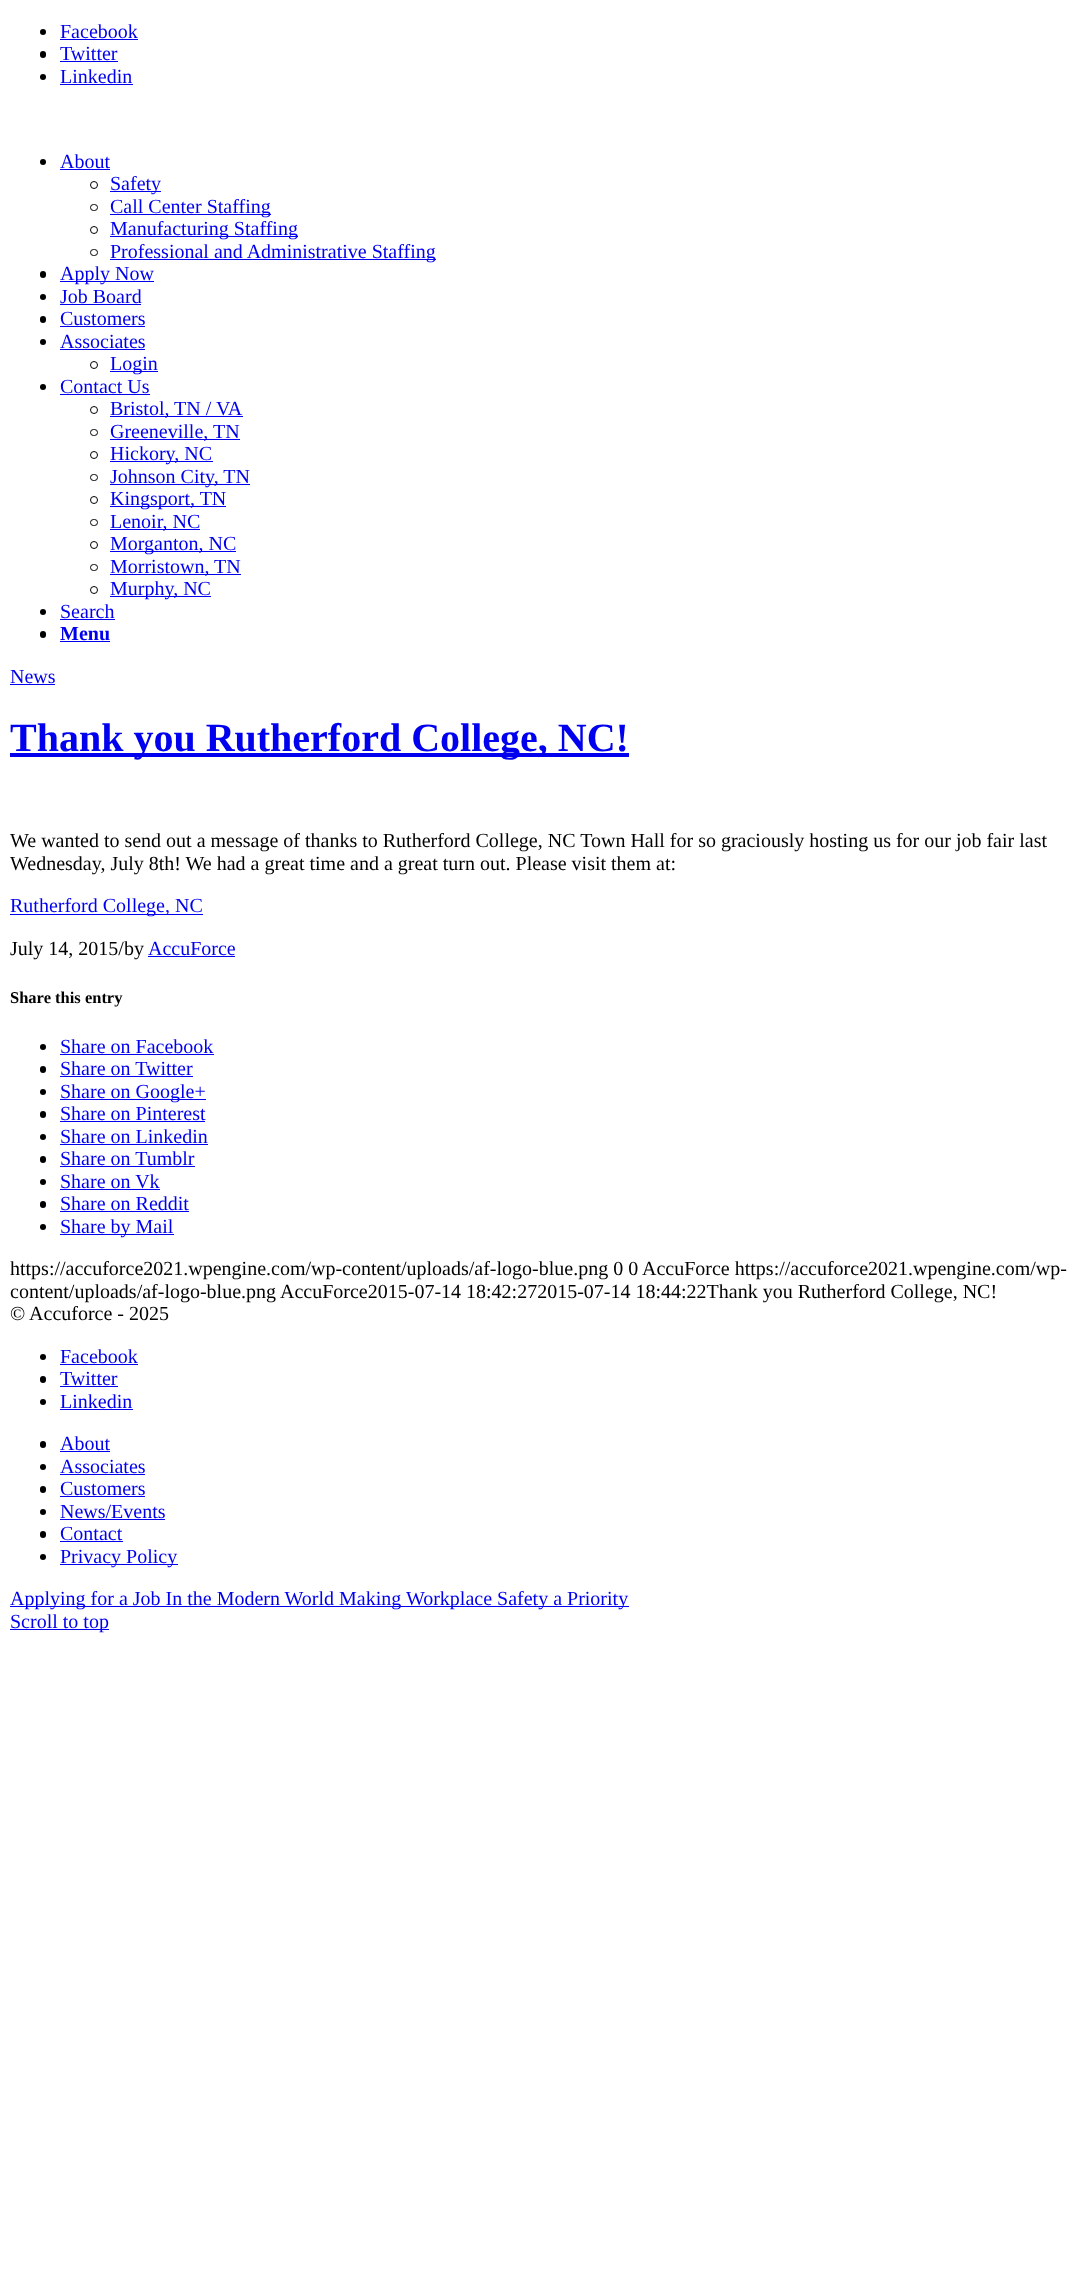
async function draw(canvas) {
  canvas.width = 1090
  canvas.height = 2292
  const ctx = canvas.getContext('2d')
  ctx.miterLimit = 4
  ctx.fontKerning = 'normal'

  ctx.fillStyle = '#fff'
  ctx.fillRect(0, 0, 1090, 2292)
  ctx.fillStyle = '#000'
  ctx.beginPath()
  ctx.arc(43, 32, 3, 0, 2 * Math.PI)
  ctx.fill()
  ctx.font = '20px Liberation Serif'
  ctx.fillStyle = '#00e'
  ctx.fillText('Facebook', 60, 38)
  ctx.fillRect(60, 39, 78, 1)
  ctx.fillStyle = '#000'
  ctx.beginPath()
  ctx.roundRect(40, 51, 6, 7, 3)
  ctx.fill()
  ctx.fillStyle = '#00e'
  ctx.fillText('Twitter', 60, 60)
  ctx.fillRect(60, 61, 58, 1)
  ctx.fillStyle = '#000'
  ctx.beginPath()
  ctx.arc(43, 77, 3, 0, 2 * Math.PI)
  ctx.fill()
  ctx.fillStyle = '#00e'
  ctx.fillText('Linkedin', 60, 83)
  ctx.fillRect(60, 84, 73, 1)
  ctx.fillStyle = '#000'
  ctx.beginPath()
  ctx.arc(43, 162, 3, 0, 2 * Math.PI)
  ctx.fill()
  ctx.fillStyle = '#00e'
  ctx.fillText('About', 60, 168)
  ctx.fillRect(60, 169, 50, 1)
  ctx.beginPath()
  ctx.arc(94, 185, 3.5, 0, 2 * Math.PI)
  ctx.strokeStyle = '#000'
  ctx.stroke()
  ctx.fillRect(110, 191, 51, 1)
  ctx.fillText('Safety', 110, 190)
  ctx.beginPath()
  ctx.roundRect(90.5, 204.5, 7, 6, 3)
  ctx.stroke()
  ctx.fillRect(110, 214, 161, 1)
  ctx.fillText('Call Center Staffing', 110, 213)
  ctx.beginPath()
  ctx.arc(94, 230, 3.5, 0, 2 * Math.PI)
  ctx.stroke()
  ctx.fillRect(110, 236, 188, 1)
  ctx.fillText('Manufacturing Staffing', 110, 235)
  ctx.beginPath()
  ctx.roundRect(90.5, 249.5, 7, 6, 3)
  ctx.stroke()
  ctx.fillRect(110, 259, 326, 1)
  ctx.fillText('Professional and Administrative Staffing', 110, 258)
  ctx.fillStyle = '#000'
  ctx.beginPath()
  ctx.roundRect(40, 271, 6, 7, 3)
  ctx.fill()
  ctx.fillStyle = '#00e'
  ctx.fillRect(60, 281, 94, 1)
  ctx.fillText('Apply Now', 60, 280)
  ctx.fillStyle = '#000'
  ctx.beginPath()
  ctx.arc(43, 297, 3, 0, 2 * Math.PI)
  ctx.fill()
  ctx.fillStyle = '#00e'
  ctx.fillText('Job Board', 60, 303)
  ctx.fillRect(60, 304, 81, 1)
  ctx.fillStyle = '#000'
  ctx.beginPath()
  ctx.roundRect(40, 316, 6, 7, 3)
  ctx.fill()
  ctx.fillStyle = '#00e'
  ctx.fillText('Customers', 60, 325)
  ctx.fillRect(60, 326, 85, 1)
  ctx.fillStyle = '#000'
  ctx.beginPath()
  ctx.arc(43, 342, 3, 0, 2 * Math.PI)
  ctx.fill()
  ctx.fillStyle = '#00e'
  ctx.fillText('Associates', 60, 348)
  ctx.fillRect(60, 349, 85, 1)
  ctx.beginPath()
  ctx.arc(94, 365, 3.5, 0, 2 * Math.PI)
  ctx.stroke()
  ctx.fillRect(110, 371, 48, 1)
  ctx.fillText('Login', 110, 370)
  ctx.fillStyle = '#000'
  ctx.beginPath()
  ctx.arc(43, 387, 3, 0, 2 * Math.PI)
  ctx.fill()
  ctx.fillStyle = '#00e'
  ctx.fillText('Contact Us', 60, 393)
  ctx.fillRect(60, 394, 90, 1)
  ctx.beginPath()
  ctx.arc(94, 410, 3.5, 0, 2 * Math.PI)
  ctx.stroke()
  ctx.fillRect(110, 416, 133, 1)
  ctx.fillText('Bristol, TN / VA', 110, 415)
  ctx.beginPath()
  ctx.roundRect(90.5, 429.5, 7, 6, 3)
  ctx.stroke()
  ctx.fillRect(110, 439, 130, 1)
  ctx.fillText('Greeneville, TN', 110, 438)
  ctx.beginPath()
  ctx.arc(94, 455, 3.5, 0, 2 * Math.PI)
  ctx.stroke()
  ctx.fillRect(110, 461, 103, 1)
  ctx.fillText('Hickory, NC', 110, 460)
  ctx.beginPath()
  ctx.roundRect(90.5, 474.5, 7, 6, 3)
  ctx.stroke()
  ctx.fillRect(110, 484, 140, 1)
  ctx.fillText('Johnson City, TN', 110, 483)
  ctx.beginPath()
  ctx.arc(94, 500, 3.5, 0, 2 * Math.PI)
  ctx.stroke()
  ctx.fillRect(110, 506, 116, 1)
  ctx.fillText('Kingsport, TN', 110, 505)
  ctx.beginPath()
  ctx.roundRect(90.5, 519.5, 7, 6, 3)
  ctx.stroke()
  ctx.fillRect(110, 529, 90, 1)
  ctx.fillText('Lenoir, NC', 110, 528)
  ctx.beginPath()
  ctx.arc(94, 545, 3.5, 0, 2 * Math.PI)
  ctx.stroke()
  ctx.fillRect(110, 551, 126, 1)
  ctx.fillText('Morganton, NC', 110, 550)
  ctx.beginPath()
  ctx.roundRect(90.5, 564.5, 7, 6, 3)
  ctx.stroke()
  ctx.fillRect(110, 574, 131, 1)
  ctx.fillText('Morristown, TN', 110, 573)
  ctx.beginPath()
  ctx.arc(94, 590, 3.5, 0, 2 * Math.PI)
  ctx.stroke()
  ctx.fillRect(110, 596, 101, 1)
  ctx.fillText('Murphy, NC', 110, 595)
  ctx.fillStyle = '#000'
  ctx.beginPath()
  ctx.arc(43, 612, 3, 0, 2 * Math.PI)
  ctx.fill()
  ctx.fillStyle = '#00e'
  ctx.fillText('Search', 60, 618)
  ctx.fillRect(60, 619, 55, 1)
  ctx.fillStyle = '#000'
  ctx.beginPath()
  ctx.roundRect(40, 631, 6, 7, 3)
  ctx.fill()
  ctx.font = 'bold 20px Liberation Serif'
  ctx.fillStyle = '#00e'
  ctx.fillText('Menu', 60, 640)
  ctx.fillRect(60, 641, 50, 1)
  ctx.font = '20px Liberation Serif'
  ctx.fillText('News', 10, 683)
  ctx.fillRect(10, 684, 45, 1)
  ctx.fillRect(10, 753, 619, 4)
  ctx.font = 'bold 40px Liberation Serif'
  ctx.fillText('Thank you Rutherford College, NC!', 10, 751)
  ctx.font = '20px Liberation Serif'
  ctx.fillStyle = '#000'
  ctx.fillText('We wanted to send out a message of thanks to Rutherford College, NC Town Hall for so graciously hosting us for our job fair last', 10, 847)
  ctx.fillText('Wednesday, July 8th! We had a great time and a great turn out. Please visit them at:', 10, 870)
  ctx.fillStyle = '#00e'
  ctx.fillRect(10, 914, 193, 1)
  ctx.fillText('Rutherford College, NC', 10, 912)
  ctx.fillStyle = '#000'
  ctx.fillText('July 14, 2015/by', 10, 955)
  ctx.fillStyle = '#00e'
  ctx.fillRect(148, 956, 87, 1)
  ctx.fillText('AccuForce', 148, 955)
  ctx.font = 'bold 16.5px Liberation Serif'
  ctx.fillStyle = '#000'
  ctx.fillText('Share this entry', 10, 1003)
  ctx.beginPath()
  ctx.arc(43, 1047, 3, 0, 2 * Math.PI)
  ctx.fill()
  ctx.font = '20px Liberation Serif'
  ctx.fillStyle = '#00e'
  ctx.fillText('Share on Facebook', 60, 1053)
  ctx.fillRect(60, 1054, 154, 1)
  ctx.fillStyle = '#000'
  ctx.beginPath()
  ctx.roundRect(40, 1066, 6, 7, 3)
  ctx.fill()
  ctx.fillStyle = '#00e'
  ctx.fillText('Share on Twitter', 60, 1075)
  ctx.fillRect(60, 1076, 133, 1)
  ctx.fillStyle = '#000'
  ctx.beginPath()
  ctx.arc(43, 1092, 3, 0, 2 * Math.PI)
  ctx.fill()
  ctx.fillStyle = '#00e'
  ctx.fillRect(60, 1099, 146, 1)
  ctx.fillText('Share on Google+', 60, 1098)
  ctx.fillStyle = '#000'
  ctx.beginPath()
  ctx.roundRect(40, 1111, 6, 7, 3)
  ctx.fill()
  ctx.fillStyle = '#00e'
  ctx.fillText('Share on Pinterest', 60, 1120)
  ctx.fillRect(60, 1121, 145, 1)
  ctx.fillStyle = '#000'
  ctx.beginPath()
  ctx.arc(43, 1137, 3, 0, 2 * Math.PI)
  ctx.fill()
  ctx.fillStyle = '#00e'
  ctx.fillText('Share on Linkedin', 60, 1143)
  ctx.fillRect(60, 1144, 148, 1)
  ctx.fillStyle = '#000'
  ctx.beginPath()
  ctx.roundRect(40, 1156, 6, 7, 3)
  ctx.fill()
  ctx.fillStyle = '#00e'
  ctx.fillText('Share on Tumblr', 60, 1165)
  ctx.fillRect(60, 1166, 135, 1)
  ctx.fillStyle = '#000'
  ctx.beginPath()
  ctx.arc(43, 1182, 3, 0, 2 * Math.PI)
  ctx.fill()
  ctx.fillStyle = '#00e'
  ctx.fillText('Share on Vk', 60, 1188)
  ctx.fillRect(60, 1189, 100, 1)
  ctx.fillStyle = '#000'
  ctx.beginPath()
  ctx.roundRect(40, 1201, 6, 7, 3)
  ctx.fill()
  ctx.fillStyle = '#00e'
  ctx.fillText('Share on Reddit', 60, 1210)
  ctx.fillRect(60, 1211, 129, 1)
  ctx.fillStyle = '#000'
  ctx.beginPath()
  ctx.arc(43, 1227, 3, 0, 2 * Math.PI)
  ctx.fill()
  ctx.fillStyle = '#00e'
  ctx.fillRect(60, 1234, 114, 1)
  ctx.fillText('Share by Mail', 60, 1233)
  ctx.fillStyle = '#000'
  ctx.fillText('https://accuforce2021.wpengine.com/wp-content/uploads/af-logo-blue.png 0 0', 10, 1275)
  ctx.fillText('AccuForce https://accuforce2021.wpengine.com/wp-', 642, 1275)
  ctx.fillText('content/uploads/af-logo-blue.png', 10, 1298)
  ctx.fillText('AccuForce2015-07-14 18:42:272015-07-14 18:44:22Thank you Rutherford College, NC!', 280, 1298)
  ctx.fillText('© Accuforce - 2025', 10, 1320)
  ctx.beginPath()
  ctx.arc(43, 1357, 3, 0, 2 * Math.PI)
  ctx.fill()
  ctx.fillStyle = '#00e'
  ctx.fillText('Facebook', 60, 1363)
  ctx.fillRect(60, 1364, 78, 1)
  ctx.fillStyle = '#000'
  ctx.beginPath()
  ctx.roundRect(40, 1376, 6, 7, 3)
  ctx.fill()
  ctx.fillStyle = '#00e'
  ctx.fillText('Twitter', 60, 1385)
  ctx.fillRect(60, 1386, 58, 1)
  ctx.fillStyle = '#000'
  ctx.beginPath()
  ctx.arc(43, 1402, 3, 0, 2 * Math.PI)
  ctx.fill()
  ctx.fillStyle = '#00e'
  ctx.fillText('Linkedin', 60, 1408)
  ctx.fillRect(60, 1409, 73, 1)
  ctx.fillStyle = '#000'
  ctx.beginPath()
  ctx.roundRect(40, 1441, 6, 7, 3)
  ctx.fill()
  ctx.fillStyle = '#00e'
  ctx.fillText('About', 60, 1450)
  ctx.fillRect(60, 1451, 50, 1)
  ctx.fillStyle = '#000'
  ctx.beginPath()
  ctx.arc(43, 1467, 3, 0, 2 * Math.PI)
  ctx.fill()
  ctx.fillStyle = '#00e'
  ctx.fillText('Associates', 60, 1473)
  ctx.fillRect(60, 1474, 85, 1)
  ctx.fillStyle = '#000'
  ctx.beginPath()
  ctx.roundRect(40, 1486, 6, 7, 3)
  ctx.fill()
  ctx.fillStyle = '#00e'
  ctx.fillText('Customers', 60, 1495)
  ctx.fillRect(60, 1496, 85, 1)
  ctx.fillStyle = '#000'
  ctx.beginPath()
  ctx.arc(43, 1512, 3, 0, 2 * Math.PI)
  ctx.fill()
  ctx.fillStyle = '#00e'
  ctx.fillText('News/Events', 60, 1518)
  ctx.fillRect(60, 1519, 105, 1)
  ctx.fillStyle = '#000'
  ctx.beginPath()
  ctx.roundRect(40, 1531, 6, 7, 3)
  ctx.fill()
  ctx.fillStyle = '#00e'
  ctx.fillText('Contact', 60, 1540)
  ctx.fillRect(60, 1541, 63, 1)
  ctx.fillStyle = '#000'
  ctx.beginPath()
  ctx.arc(43, 1557, 3, 0, 2 * Math.PI)
  ctx.fill()
  ctx.fillStyle = '#00e'
  ctx.fillRect(60, 1564, 118, 1)
  ctx.fillText('Privacy Policy', 60, 1563)
  ctx.fillRect(10, 1606, 619, 1)
  ctx.fillText('Applying for a Job In the Modern World Making Workplace Safety a Priority', 10, 1605)
  ctx.fillRect(10, 1629, 99, 1)
  ctx.fillText('Scroll to top', 10, 1628)
}

draw(document.querySelector('canvas'))
